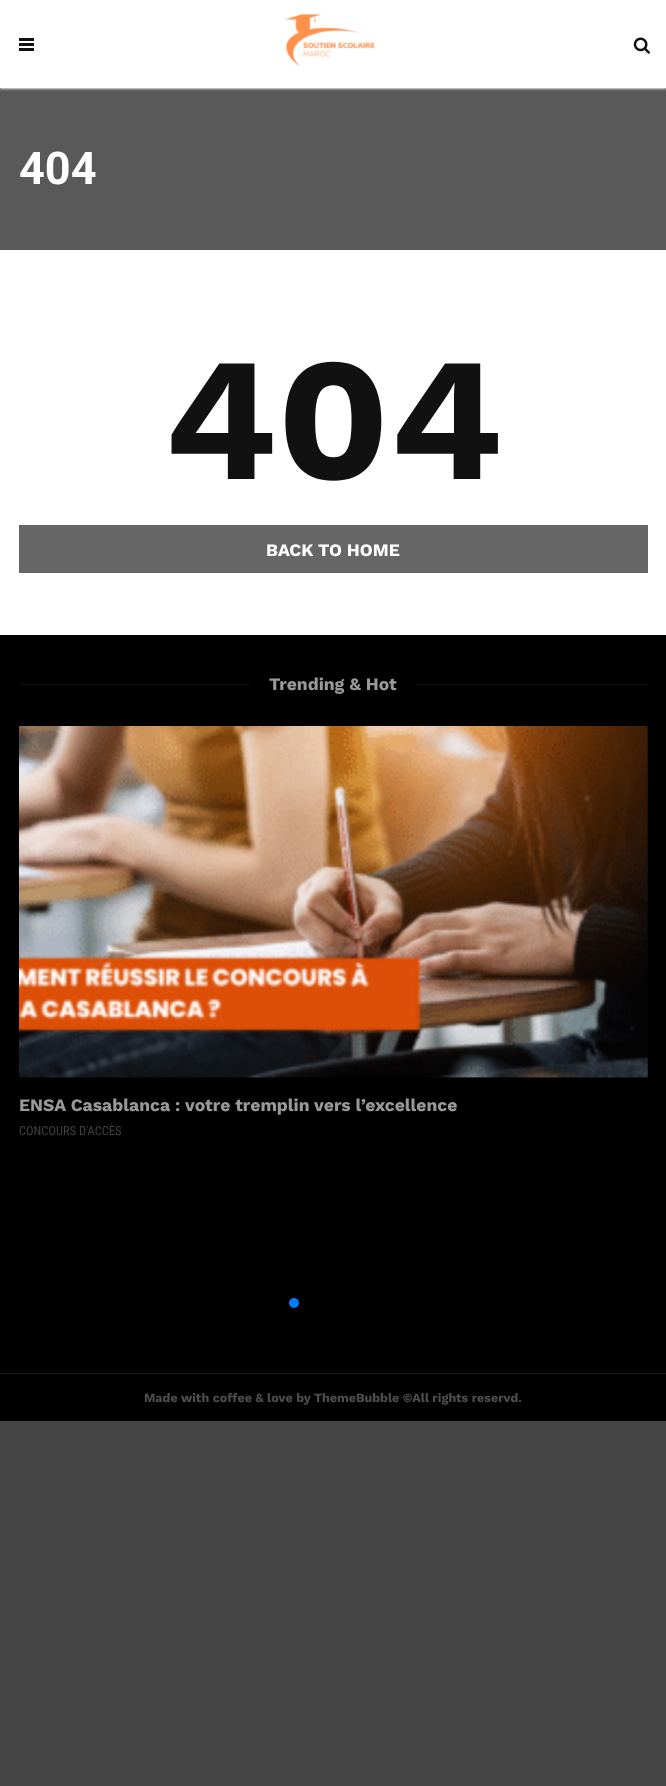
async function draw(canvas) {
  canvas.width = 666
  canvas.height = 1786
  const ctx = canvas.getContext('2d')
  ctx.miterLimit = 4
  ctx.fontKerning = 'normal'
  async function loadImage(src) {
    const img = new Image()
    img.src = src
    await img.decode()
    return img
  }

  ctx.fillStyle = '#444'
  ctx.fillRect(0, 0, 666, 1786)
  ctx.fillStyle = '#fff'
  ctx.fillRect(0, 250, 666, 385)
  ctx.fillStyle = '#595959'
  ctx.fillRect(0, 88, 666, 162)
  ctx.fillStyle = '#eaeaea'
  ctx.filter = 'blur(1px)'
  ctx.beginPath()
  ctx.rect(0, 1, 666, 88)
  ctx.fill()
  ctx.filter = 'none'
  ctx.fillStyle = '#fff'
  ctx.fillRect(0, 0, 666, 88)
  ctx.fillStyle = '#111'
  ctx.fillRect(19, 38, 15, 3)
  ctx.fillRect(19, 43, 15, 3)
  ctx.fillRect(19, 48, 15, 3)
  ctx.drawImage(await loadImage('image0.png'), 285, 13, 90, 54)
  ctx.drawImage(await loadImage('image1.png'), 633, 37, 17, 17)
  ctx.font = 'bold 45px Roboto'
  ctx.fillStyle = '#fff'
  ctx.fillText('404', 19, 184)
  ctx.font = 'bold 175px Work Sans'
  ctx.fillStyle = '#111'
  ctx.fillText('404', 164, 479)
  ctx.fillStyle = '#666'
  ctx.fillRect(19, 525, 629, 48)
  ctx.font = 'bold 17.5px Work Sans'
  ctx.fillStyle = '#fff'
  ctx.fillText('BACK TO HOME', 266, 556)
  ctx.fillStyle = '#000'
  ctx.fillRect(0, 635, 666, 786)
  ctx.fillStyle = '#0b0e0e'
  ctx.fillRect(19, 684, 231, 1)
  ctx.fillStyle = '#999'
  ctx.fillText('Trending & Hot', 269, 690)
  ctx.fillStyle = '#0b0e0e'
  ctx.fillRect(416, 684, 232, 1)
  ctx.drawImage(await loadImage('image2.png'), 19, 726, 629, 352)
  ctx.fillStyle = '#999'
  ctx.fillText('ENSA Casablanca : votre tremplin vers l’excellence', 19, 1111)
  ctx.font = '12.5px Roboto Condensed'
  ctx.fillStyle = '#404040'
  ctx.fillText('CONCOURS D\'ACCÈS', 19, 1135)
  ctx.fillStyle = '#007aff'
  ctx.beginPath()
  ctx.arc(294, 1303, 5, 0, 2 * Math.PI)
  ctx.fill()
  ctx.fillStyle = '#1a1a1a'
  ctx.fillRect(0, 1373, 666, 1)
  ctx.font = 'bold 12.5px Work Sans'
  ctx.fillStyle = '#4d4d4d'
  ctx.fillText('Made with coffee & love by ThemeBubble ©All rights reservd.', 144, 1402)
}

draw(document.querySelector('canvas'))
